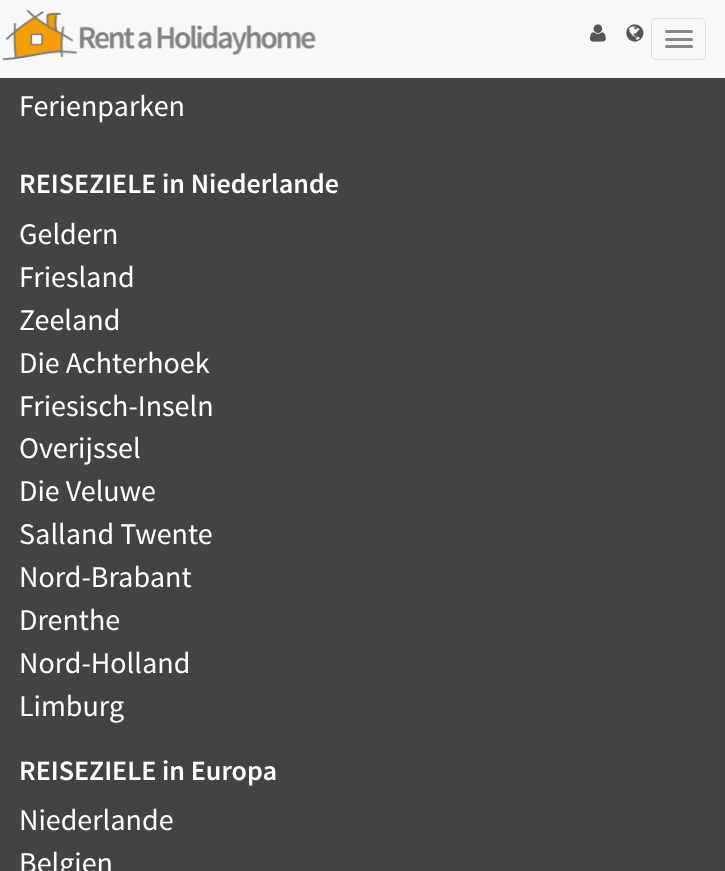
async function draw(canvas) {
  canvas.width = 725
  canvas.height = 871
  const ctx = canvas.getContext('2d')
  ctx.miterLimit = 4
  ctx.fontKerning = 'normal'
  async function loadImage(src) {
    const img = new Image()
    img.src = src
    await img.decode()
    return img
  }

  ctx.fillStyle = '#434343'
  ctx.fillRect(0, 0, 725, 871)
  ctx.fillStyle = '#f8f8f8'
  ctx.fillRect(0, 0, 725, 78)
  ctx.drawImage(await loadImage('image0.png'), 2, 9, 314, 52)
  ctx.drawImage(await loadImage('image1.png'), 590, 24, 16, 18)
  ctx.drawImage(await loadImage('image2.png'), 626, 24, 18, 18)
  ctx.beginPath()
  ctx.roundRect(651.5, 18.5, 54, 41, 4.5)
  ctx.strokeStyle = '#ddd'
  ctx.stroke()
  ctx.fillStyle = '#888'
  ctx.beginPath()
  ctx.roundRect(665, 30, 28, 3, 1.5)
  ctx.fill()
  ctx.beginPath()
  ctx.roundRect(665, 38, 28, 3, 1.5)
  ctx.fill()
  ctx.beginPath()
  ctx.roundRect(665, 45, 28, 3, 1.5)
  ctx.fill()
  ctx.font = '30px Source Sans Pro'
  ctx.fillStyle = '#fff'
  ctx.fillText('Ferienparken', 19, 116)
  ctx.font = '600 28px Source Sans Pro'
  ctx.fillText('REISEZIELE in Niederlande', 19, 193)
  ctx.font = '30px Source Sans Pro'
  ctx.fillText('Geldern', 19, 244)
  ctx.fillText('Friesland', 19, 287)
  ctx.fillText('Zeeland', 19, 330)
  ctx.fillText('Die Achterhoek', 19, 373)
  ctx.fillText('Friesisch-Inseln', 19, 416)
  ctx.fillText('Overijssel', 19, 458)
  ctx.fillText('Die Veluwe', 19, 501)
  ctx.fillText('Salland Twente', 19, 544)
  ctx.fillText('Nord-Brabant', 19, 587)
  ctx.fillText('Drenthe', 19, 630)
  ctx.fillText('Nord-Holland', 19, 673)
  ctx.fillText('Limburg', 19, 716)
  ctx.font = '600 28px Source Sans Pro'
  ctx.fillText('REISEZIELE in Europa', 19, 780)
  ctx.font = '30px Source Sans Pro'
  ctx.fillText('Niederlande', 19, 830)
  ctx.fillText('Belgien', 19, 873)
}

draw(document.querySelector('canvas'))
